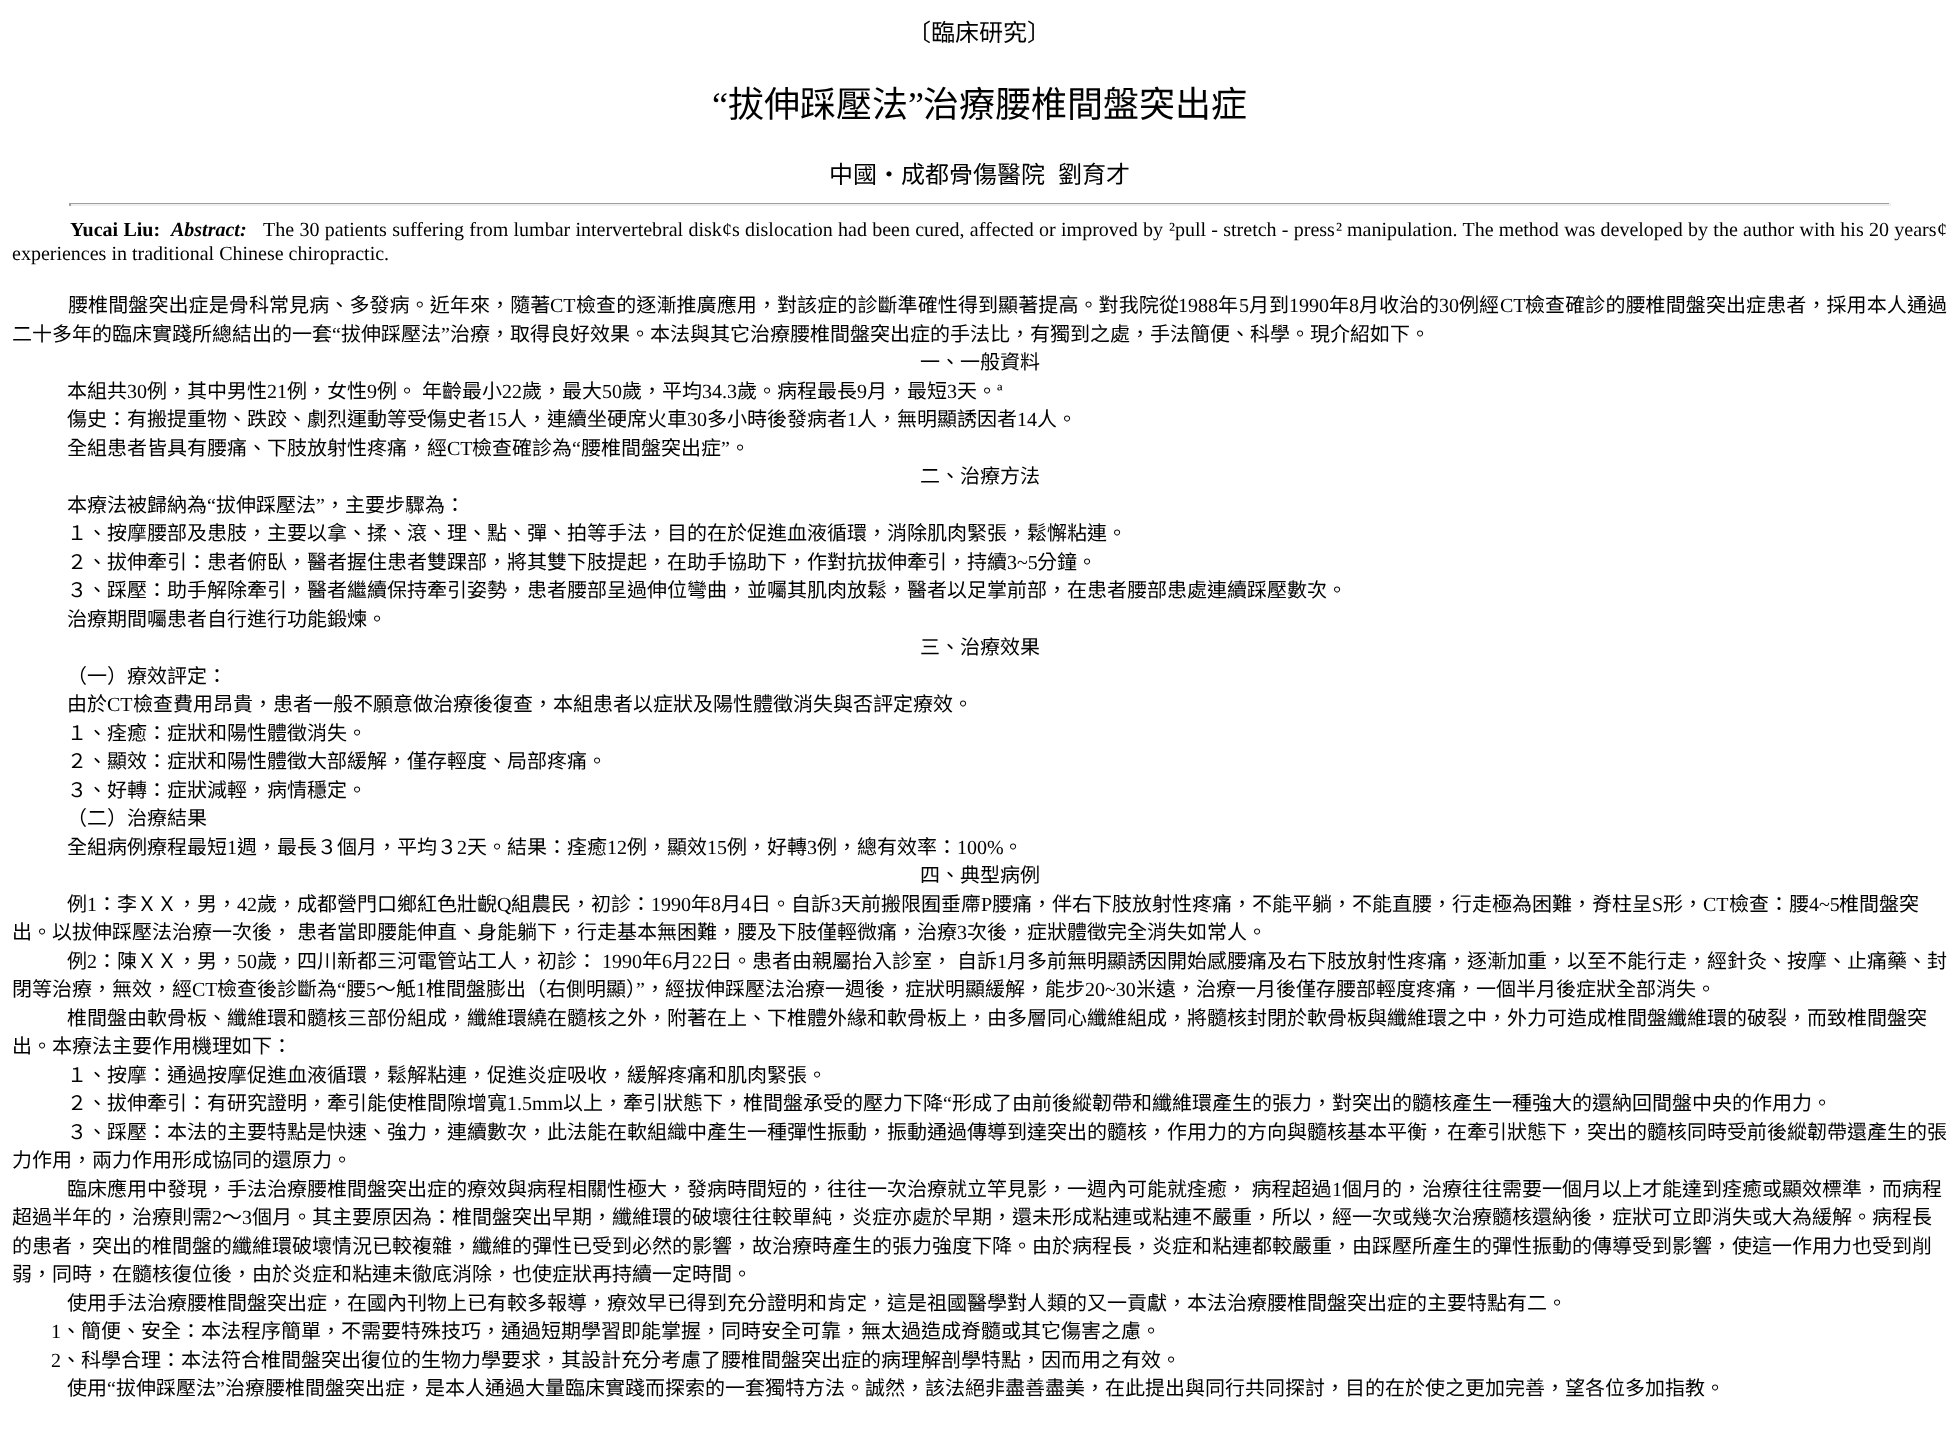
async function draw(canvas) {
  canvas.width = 1959
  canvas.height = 1439
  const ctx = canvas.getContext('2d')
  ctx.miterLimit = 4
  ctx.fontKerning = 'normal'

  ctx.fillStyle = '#fff'
  ctx.fillRect(0, 0, 1959, 1439)
  ctx.font = '24px Noto Sans CJK TC'
  ctx.fillStyle = '#000'
  ctx.fillText('〔臨床研究〕', 907, 41)
  ctx.font = '36px Liberation Serif'
  ctx.fillText('“', 712, 117)
  ctx.font = '36px Noto Sans CJK TC'
  ctx.fillText('拔伸踩壓法', 728, 117)
  ctx.font = '36px Liberation Serif'
  ctx.fillText('”', 908, 117)
  ctx.font = '36px Noto Sans CJK TC'
  ctx.fillText('治療腰椎間盤突出症', 923, 117)
  ctx.font = '24px Noto Sans CJK TC'
  ctx.fillText('中國‧成都骨傷醫院', 829, 183)
  ctx.fillText('劉育才', 1058, 183)
  ctx.fillStyle = '#9f9f9f'
  ctx.fillRect(69, 203, 1821, 1)
  ctx.fillStyle = '#eee'
  ctx.fillRect(1889, 203, 2, 3)
  ctx.fillRect(69, 204, 1821, 2)
  ctx.fillStyle = '#9f9f9f'
  ctx.fillRect(69, 203, 2, 3)
  ctx.wordSpacing = '0.25px'
  ctx.font = 'bold 20px Liberation Serif'
  ctx.fillStyle = '#000'
  ctx.fillText('Yucai Liu:', 70, 236)
  ctx.wordSpacing = '0px'
  ctx.font = 'italic bold 20px Liberation Serif'
  ctx.fillText('Abstract:', 171, 236)
  ctx.wordSpacing = '0.3px'
  ctx.font = '20px Liberation Serif'
  ctx.fillText('The 30 patients suffering from lumbar intervertebral disk', 263, 236)
  ctx.wordSpacing = '0px'
  ctx.fillText('¢', 722, 236)
  ctx.wordSpacing = '0.25px'
  ctx.fillText('s dislocation had been cured, affected or improved by', 732, 236)
  ctx.wordSpacing = '0px'
  ctx.fillText('²', 1169, 236)
  ctx.wordSpacing = '0.25px'
  ctx.fillText('pull - stretch - press', 1175, 236)
  ctx.wordSpacing = '0px'
  ctx.fillText('²', 1336, 236)
  ctx.wordSpacing = '0.3px'
  ctx.fillText('manipulation. The method was developed by the author with his 20 years', 1347, 236)
  ctx.wordSpacing = '0px'
  ctx.fillText('¢', 1937, 236)
  ctx.fillText('experiences in traditional Chinese chiropractic.', 12, 260)
  ctx.letterSpacing = '0.1px'
  ctx.font = '20px Noto Sans CJK TC'
  ctx.fillText('腰椎間盤突出症是骨科常見病、多發病。近年來，隨著', 68, 312)
  ctx.letterSpacing = '0px'
  ctx.font = '20px Liberation Serif'
  ctx.fillText('CT', 550, 312)
  ctx.letterSpacing = '0.1px'
  ctx.font = '20px Noto Sans CJK TC'
  ctx.fillText('檢查的逐漸推廣應用，對該症的診斷準確性得到顯著提高。對我院從', 576, 312)
  ctx.letterSpacing = '0px'
  ctx.font = '20px Liberation Serif'
  ctx.fillText('1988', 1178, 312)
  ctx.font = '20px Noto Sans CJK TC'
  ctx.fillText('年', 1218, 312)
  ctx.font = '20px Liberation Serif'
  ctx.fillText('5', 1239, 312)
  ctx.font = '20px Noto Sans CJK TC'
  ctx.fillText('月到', 1249, 312)
  ctx.font = '20px Liberation Serif'
  ctx.fillText('1990', 1289, 312)
  ctx.font = '20px Noto Sans CJK TC'
  ctx.fillText('年', 1329, 312)
  ctx.font = '20px Liberation Serif'
  ctx.fillText('8', 1349, 312)
  ctx.font = '20px Noto Sans CJK TC'
  ctx.fillText('月收治的', 1359, 312)
  ctx.font = '20px Liberation Serif'
  ctx.fillText('30', 1439, 312)
  ctx.font = '20px Noto Sans CJK TC'
  ctx.fillText('例經', 1459, 312)
  ctx.font = '20px Liberation Serif'
  ctx.fillText('CT', 1500, 312)
  ctx.letterSpacing = '0.1px'
  ctx.font = '20px Noto Sans CJK TC'
  ctx.fillText('檢查確診的腰椎間盤突出症患者，採用本人通過', 1525, 312)
  ctx.letterSpacing = '0px'
  ctx.fillText('二十多年的臨床實踐所總結出的一套', 12, 341)
  ctx.font = '20px Liberation Serif'
  ctx.fillText('“', 332, 341)
  ctx.font = '20px Noto Sans CJK TC'
  ctx.fillText('拔伸踩壓法', 341, 341)
  ctx.font = '20px Liberation Serif'
  ctx.fillText('”', 441, 341)
  ctx.font = '20px Noto Sans CJK TC'
  ctx.fillText('治療，取得良好效果。本法與其它治療腰椎間盤突出症的手法比，有獨到之處，手法簡便、科學。現介紹如下。', 450, 341)
  ctx.fillText('一、一般資料', 920, 369)
  ctx.fillText('本組共', 67, 398)
  ctx.font = '20px Liberation Serif'
  ctx.fillText('30', 127, 398)
  ctx.font = '20px Noto Sans CJK TC'
  ctx.fillText('例，其中男性', 147, 398)
  ctx.font = '20px Liberation Serif'
  ctx.fillText('21', 267, 398)
  ctx.font = '20px Noto Sans CJK TC'
  ctx.fillText('例，女性', 287, 398)
  ctx.font = '20px Liberation Serif'
  ctx.fillText('9', 367, 398)
  ctx.font = '20px Noto Sans CJK TC'
  ctx.fillText('例。', 377, 398)
  ctx.fillText('年齡最小', 422, 398)
  ctx.font = '20px Liberation Serif'
  ctx.fillText('22', 502, 398)
  ctx.font = '20px Noto Sans CJK TC'
  ctx.fillText('歲，最大', 522, 398)
  ctx.font = '20px Liberation Serif'
  ctx.fillText('50', 602, 398)
  ctx.font = '20px Noto Sans CJK TC'
  ctx.fillText('歲，平均', 622, 398)
  ctx.font = '20px Liberation Serif'
  ctx.fillText('34.3', 702, 398)
  ctx.font = '20px Noto Sans CJK TC'
  ctx.fillText('歲。病程最長', 737, 398)
  ctx.font = '20px Liberation Serif'
  ctx.fillText('9', 857, 398)
  ctx.font = '20px Noto Sans CJK TC'
  ctx.fillText('月，最短', 867, 398)
  ctx.font = '20px Liberation Serif'
  ctx.fillText('3', 947, 398)
  ctx.font = '20px Noto Sans CJK TC'
  ctx.fillText('天。', 957, 398)
  ctx.font = '20px Liberation Serif'
  ctx.fillText('ª', 997, 398)
  ctx.font = '20px Noto Sans CJK TC'
  ctx.fillText('傷史：有搬提重物、跌跤、劇烈運動等受傷史者', 67, 426)
  ctx.font = '20px Liberation Serif'
  ctx.fillText('15', 487, 426)
  ctx.font = '20px Noto Sans CJK TC'
  ctx.fillText('人，連續坐硬席火車', 507, 426)
  ctx.font = '20px Liberation Serif'
  ctx.fillText('30', 687, 426)
  ctx.font = '20px Noto Sans CJK TC'
  ctx.fillText('多小時後發病者', 707, 426)
  ctx.font = '20px Liberation Serif'
  ctx.fillText('1', 847, 426)
  ctx.font = '20px Noto Sans CJK TC'
  ctx.fillText('人，無明顯誘因者', 857, 426)
  ctx.font = '20px Liberation Serif'
  ctx.fillText('14', 1017, 426)
  ctx.font = '20px Noto Sans CJK TC'
  ctx.fillText('人。', 1037, 426)
  ctx.fillText('全組患者皆具有腰痛、下肢放射性疼痛，經', 67, 455)
  ctx.font = '20px Liberation Serif'
  ctx.fillText('CT', 447, 455)
  ctx.font = '20px Noto Sans CJK TC'
  ctx.fillText('檢查確診為', 472, 455)
  ctx.font = '20px Liberation Serif'
  ctx.fillText('“', 572, 455)
  ctx.font = '20px Noto Sans CJK TC'
  ctx.fillText('腰椎間盤突出症', 581, 455)
  ctx.font = '20px Liberation Serif'
  ctx.fillText('”', 721, 455)
  ctx.font = '20px Noto Sans CJK TC'
  ctx.fillText('。', 730, 455)
  ctx.fillText('二、治療方法', 920, 483)
  ctx.fillText('本療法被歸納為', 67, 512)
  ctx.font = '20px Liberation Serif'
  ctx.fillText('“', 207, 512)
  ctx.font = '20px Noto Sans CJK TC'
  ctx.fillText('拔伸踩壓法', 216, 512)
  ctx.font = '20px Liberation Serif'
  ctx.fillText('”', 316, 512)
  ctx.font = '20px Noto Sans CJK TC'
  ctx.fillText('，主要步驟為：', 325, 512)
  ctx.fillText('１、按摩腰部及患肢，主要以拿、揉、滾、理、點、彈、拍等手法，目的在於促進血液循環，消除肌肉緊張，鬆懈粘連。', 67, 540)
  ctx.fillText('２、拔伸牽引：患者俯臥，醫者握住患者雙踝部，將其雙下肢提起，在助手協助下，作對抗拔伸牽引，持續', 67, 569)
  ctx.font = '20px Liberation Serif'
  ctx.fillText('3~5', 1007, 569)
  ctx.font = '20px Noto Sans CJK TC'
  ctx.fillText('分鐘。', 1037, 569)
  ctx.fillText('３、踩壓：助手解除牽引，醫者繼續保持牽引姿勢，患者腰部呈過伸位彎曲，並囑其肌肉放鬆，醫者以足掌前部，在患者腰部患處連續踩壓數次。', 67, 597)
  ctx.fillText('治療期間囑患者自行進行功能鍛煉。', 67, 626)
  ctx.fillText('三、治療效果', 920, 654)
  ctx.fillText('（一）療效評定：', 67, 683)
  ctx.fillText('由於', 67, 711)
  ctx.font = '20px Liberation Serif'
  ctx.fillText('CT', 107, 711)
  ctx.font = '20px Noto Sans CJK TC'
  ctx.fillText('檢查費用昂貴，患者一般不願意做治療後復查，本組患者以症狀及陽性體徵消失與否評定療效。', 133, 711)
  ctx.fillText('１、痊癒：症狀和陽性體徵消失。', 67, 740)
  ctx.fillText('２、顯效：症狀和陽性體徵大部緩解，僅存輕度、局部疼痛。', 67, 768)
  ctx.fillText('３、好轉：症狀減輕，病情穩定。', 67, 797)
  ctx.fillText('（二）治療結果', 67, 825)
  ctx.fillText('全組病例療程最短', 67, 854)
  ctx.font = '20px Liberation Serif'
  ctx.fillText('1', 227, 854)
  ctx.font = '20px Noto Sans CJK TC'
  ctx.fillText('週，最長３個月，平均３', 237, 854)
  ctx.font = '20px Liberation Serif'
  ctx.fillText('2', 457, 854)
  ctx.font = '20px Noto Sans CJK TC'
  ctx.fillText('天。結果：痊癒', 467, 854)
  ctx.font = '20px Liberation Serif'
  ctx.fillText('12', 607, 854)
  ctx.font = '20px Noto Sans CJK TC'
  ctx.fillText('例，顯效', 627, 854)
  ctx.font = '20px Liberation Serif'
  ctx.fillText('15', 707, 854)
  ctx.font = '20px Noto Sans CJK TC'
  ctx.fillText('例，好轉', 727, 854)
  ctx.font = '20px Liberation Serif'
  ctx.fillText('3', 807, 854)
  ctx.font = '20px Noto Sans CJK TC'
  ctx.fillText('例，總有效率：', 817, 854)
  ctx.font = '20px Liberation Serif'
  ctx.fillText('100%', 957, 854)
  ctx.font = '20px Noto Sans CJK TC'
  ctx.fillText('。', 1003, 854)
  ctx.fillText('四、典型病例', 920, 882)
  ctx.fillText('例', 67, 911)
  ctx.font = '20px Liberation Serif'
  ctx.fillText('1', 87, 911)
  ctx.font = '20px Noto Sans CJK TC'
  ctx.fillText('：李ＸＸ，男，', 97, 911)
  ctx.font = '20px Liberation Serif'
  ctx.fillText('42', 237, 911)
  ctx.font = '20px Noto Sans CJK TC'
  ctx.fillText('歲，成都營門口鄉紅色壯齯', 257, 911)
  ctx.font = '20px Liberation Serif'
  ctx.fillText('Q', 497, 911)
  ctx.font = '20px Noto Sans CJK TC'
  ctx.fillText('組農民，初診：', 511, 911)
  ctx.font = '20px Liberation Serif'
  ctx.fillText('1990', 651, 911)
  ctx.font = '20px Noto Sans CJK TC'
  ctx.fillText('年', 691, 911)
  ctx.font = '20px Liberation Serif'
  ctx.fillText('8', 711, 911)
  ctx.font = '20px Noto Sans CJK TC'
  ctx.fillText('月', 721, 911)
  ctx.font = '20px Liberation Serif'
  ctx.fillText('4', 741, 911)
  ctx.font = '20px Noto Sans CJK TC'
  ctx.fillText('日。自訴', 751, 911)
  ctx.font = '20px Liberation Serif'
  ctx.fillText('3', 831, 911)
  ctx.font = '20px Noto Sans CJK TC'
  ctx.fillText('天前搬限囿垂廗', 841, 911)
  ctx.font = '20px Liberation Serif'
  ctx.fillText('P', 981, 911)
  ctx.font = '20px Noto Sans CJK TC'
  ctx.fillText('腰痛，伴右下肢放射性疼痛，不能平躺，不能直腰，行走極為困難，脊柱呈', 992, 911)
  ctx.font = '20px Liberation Serif'
  ctx.fillText('S', 1652, 911)
  ctx.font = '20px Noto Sans CJK TC'
  ctx.fillText('形，', 1663, 911)
  ctx.font = '20px Liberation Serif'
  ctx.fillText('CT', 1703, 911)
  ctx.font = '20px Noto Sans CJK TC'
  ctx.fillText('檢查：腰', 1729, 911)
  ctx.font = '20px Liberation Serif'
  ctx.fillText('4~5', 1809, 911)
  ctx.font = '20px Noto Sans CJK TC'
  ctx.fillText('椎間盤突', 1839, 911)
  ctx.fillText('出。以拔伸踩壓法治療一次後，', 12, 939)
  ctx.fillText('患者當即腰能伸直、身能躺下，行走基本無困難，腰及下肢僅輕微痛，治療', 297, 939)
  ctx.font = '20px Liberation Serif'
  ctx.fillText('3', 957, 939)
  ctx.font = '20px Noto Sans CJK TC'
  ctx.fillText('次後，症狀體徵完全消失如常人。', 967, 939)
  ctx.fillText('例', 67, 968)
  ctx.font = '20px Liberation Serif'
  ctx.fillText('2', 87, 968)
  ctx.font = '20px Noto Sans CJK TC'
  ctx.fillText('：陳ＸＸ，男，', 97, 968)
  ctx.font = '20px Liberation Serif'
  ctx.fillText('50', 237, 968)
  ctx.font = '20px Noto Sans CJK TC'
  ctx.fillText('歲，四川新都三河電管站工人，初診：', 257, 968)
  ctx.font = '20px Liberation Serif'
  ctx.fillText('1990', 602, 968)
  ctx.font = '20px Noto Sans CJK TC'
  ctx.fillText('年', 642, 968)
  ctx.font = '20px Liberation Serif'
  ctx.fillText('6', 662, 968)
  ctx.font = '20px Noto Sans CJK TC'
  ctx.fillText('月', 672, 968)
  ctx.font = '20px Liberation Serif'
  ctx.fillText('22', 692, 968)
  ctx.font = '20px Noto Sans CJK TC'
  ctx.fillText('日。患者由親屬抬入診室，', 712, 968)
  ctx.fillText('自訴', 957, 968)
  ctx.font = '20px Liberation Serif'
  ctx.fillText('1', 997, 968)
  ctx.font = '20px Noto Sans CJK TC'
  ctx.fillText('月多前無明顯誘因開始感腰痛及右下肢放射性疼痛，逐漸加重，以至不能行走，經針灸、按摩、止痛藥、封', 1007, 968)
  ctx.fillText('閉等治療，無效，經', 12, 996)
  ctx.font = '20px Liberation Serif'
  ctx.fillText('CT', 192, 996)
  ctx.font = '20px Noto Sans CJK TC'
  ctx.fillText('檢查後診斷為', 217, 996)
  ctx.font = '20px Liberation Serif'
  ctx.fillText('“', 337, 996)
  ctx.font = '20px Noto Sans CJK TC'
  ctx.fillText('腰', 346, 996)
  ctx.font = '20px Liberation Serif'
  ctx.fillText('5', 366, 996)
  ctx.font = '20px Noto Sans CJK TC'
  ctx.fillText('～觝', 376, 996)
  ctx.font = '20px Liberation Serif'
  ctx.fillText('1', 416, 996)
  ctx.font = '20px Noto Sans CJK TC'
  ctx.fillText('椎間盤膨出（右側明顯）', 426, 996)
  ctx.font = '20px Liberation Serif'
  ctx.fillText('”', 636, 996)
  ctx.font = '20px Noto Sans CJK TC'
  ctx.fillText('，經拔伸踩壓法治療一週後，症狀明顯緩解，能步', 645, 996)
  ctx.font = '20px Liberation Serif'
  ctx.fillText('20~30', 1085, 996)
  ctx.font = '20px Noto Sans CJK TC'
  ctx.fillText('米遠，治療一月後僅存腰部輕度疼痛，一個半月後症狀全部消失。', 1136, 996)
  ctx.fillText('椎間盤由軟骨板、纖維環和髓核三部份組成，纖維環繞在髓核之外，附著在上、下椎體外緣和軟骨板上，由多層同心纖維組成，將髓核封閉於軟骨板與纖維環之中，外力可造成椎間盤纖維環的破裂，而致椎間盤突', 67, 1025)
  ctx.fillText('出。本療法主要作用機理如下：', 12, 1053)
  ctx.fillText('１、按摩：通過按摩促進血液循環，鬆解粘連，促進炎症吸收，緩解疼痛和肌肉緊張。', 67, 1082)
  ctx.fillText('２、拔伸牽引：有研究證明，牽引能使椎間隙增寬', 67, 1110)
  ctx.font = '20px Liberation Serif'
  ctx.fillText('1.5mm', 507, 1110)
  ctx.font = '20px Noto Sans CJK TC'
  ctx.fillText('以上，牽引狀態下，椎間盤承受的壓力下降', 563, 1110)
  ctx.font = '20px Liberation Serif'
  ctx.fillText('“', 943, 1110)
  ctx.font = '20px Noto Sans CJK TC'
  ctx.fillText('形成了由前後縱韌帶和纖維環產生的張力，對突出的髓核產生一種強大的還納回間盤中央的作用力。', 952, 1110)
  ctx.fillText('３、踩壓：本法的主要特點是快速、強力，連續數次，此法能在軟組織中產生一種彈性振動，振動通過傳導到達突出的髓核，作用力的方向與髓核基本平衡，在牽引狀態下，突出的髓核同時受前後縱韌帶還產生的張', 67, 1139)
  ctx.fillText('力作用，兩力作用形成協同的還原力。', 12, 1167)
  ctx.fillText('臨床應用中發現，手法治療腰椎間盤突出症的療效與病程相關性極大，發病時間短的，往往一次治療就立竿見影，一週內可能就痊癒， 病程超過', 67, 1196)
  ctx.font = '20px Liberation Serif'
  ctx.fillText('1', 1332, 1196)
  ctx.font = '20px Noto Sans CJK TC'
  ctx.fillText('個月的，治療往往需要一個月以上才能達到痊癒或顯效標準，而病程', 1342, 1196)
  ctx.fillText('超過半年的，治療則需', 12, 1224)
  ctx.font = '20px Liberation Serif'
  ctx.fillText('2', 212, 1224)
  ctx.font = '20px Noto Sans CJK TC'
  ctx.fillText('～', 222, 1224)
  ctx.font = '20px Liberation Serif'
  ctx.fillText('3', 242, 1224)
  ctx.font = '20px Noto Sans CJK TC'
  ctx.fillText('個月。其主要原因為：椎間盤突出早期，纖維環的破壞往往較單純，炎症亦處於早期，還未形成粘連或粘連不嚴重，所以，經一次或幾次治療髓核還納後，症狀可立即消失或大為緩解。病程長', 252, 1224)
  ctx.fillText('的患者，突出的椎間盤的纖維環破壞情況已較複雜，纖維的彈性已受到必然的影響，故治療時產生的張力強度下降。由於病程長，炎症和粘連都較嚴重，由踩壓所產生的彈性振動的傳導受到影響，使這一作用力也受到削', 12, 1253)
  ctx.fillText('弱，同時，在髓核復位後，由於炎症和粘連未徹底消除，也使症狀再持續一定時間。', 12, 1281)
  ctx.fillText('使用手法治療腰椎間盤突出症，在國內刊物上已有較多報導，療效早已得到充分證明和肯定，這是祖國醫學對人類的又一貢獻，本法治療腰椎間盤突出症的主要特點有二。', 67, 1310)
  ctx.font = '20px Liberation Serif'
  ctx.fillText('1', 51, 1338)
  ctx.font = '20px Noto Sans CJK TC'
  ctx.fillText('、簡便、安全：本法程序簡單，不需要特殊技巧，通過短期學習即能掌握，同時安全可靠，無太過造成脊髓或其它傷害之慮。', 61, 1338)
  ctx.font = '20px Liberation Serif'
  ctx.fillText('2', 51, 1367)
  ctx.font = '20px Noto Sans CJK TC'
  ctx.fillText('、科學合理：本法符合椎間盤突出復位的生物力學要求，其設計充分考慮了腰椎間盤突出症的病理解剖學特點，因而用之有效。', 61, 1367)
  ctx.fillText('使用', 67, 1395)
  ctx.font = '20px Liberation Serif'
  ctx.fillText('“', 107, 1395)
  ctx.font = '20px Noto Sans CJK TC'
  ctx.fillText('拔伸踩壓法', 116, 1395)
  ctx.font = '20px Liberation Serif'
  ctx.fillText('”', 216, 1395)
  ctx.font = '20px Noto Sans CJK TC'
  ctx.fillText('治療腰椎間盤突出症，是本人通過大量臨床實踐而探索的一套獨特方法。誠然，該法絕非盡善盡美，在此提出與同行共同探討，目的在於使之更加完善，望各位多加指教。', 225, 1395)
}

draw(document.querySelector('canvas'))
